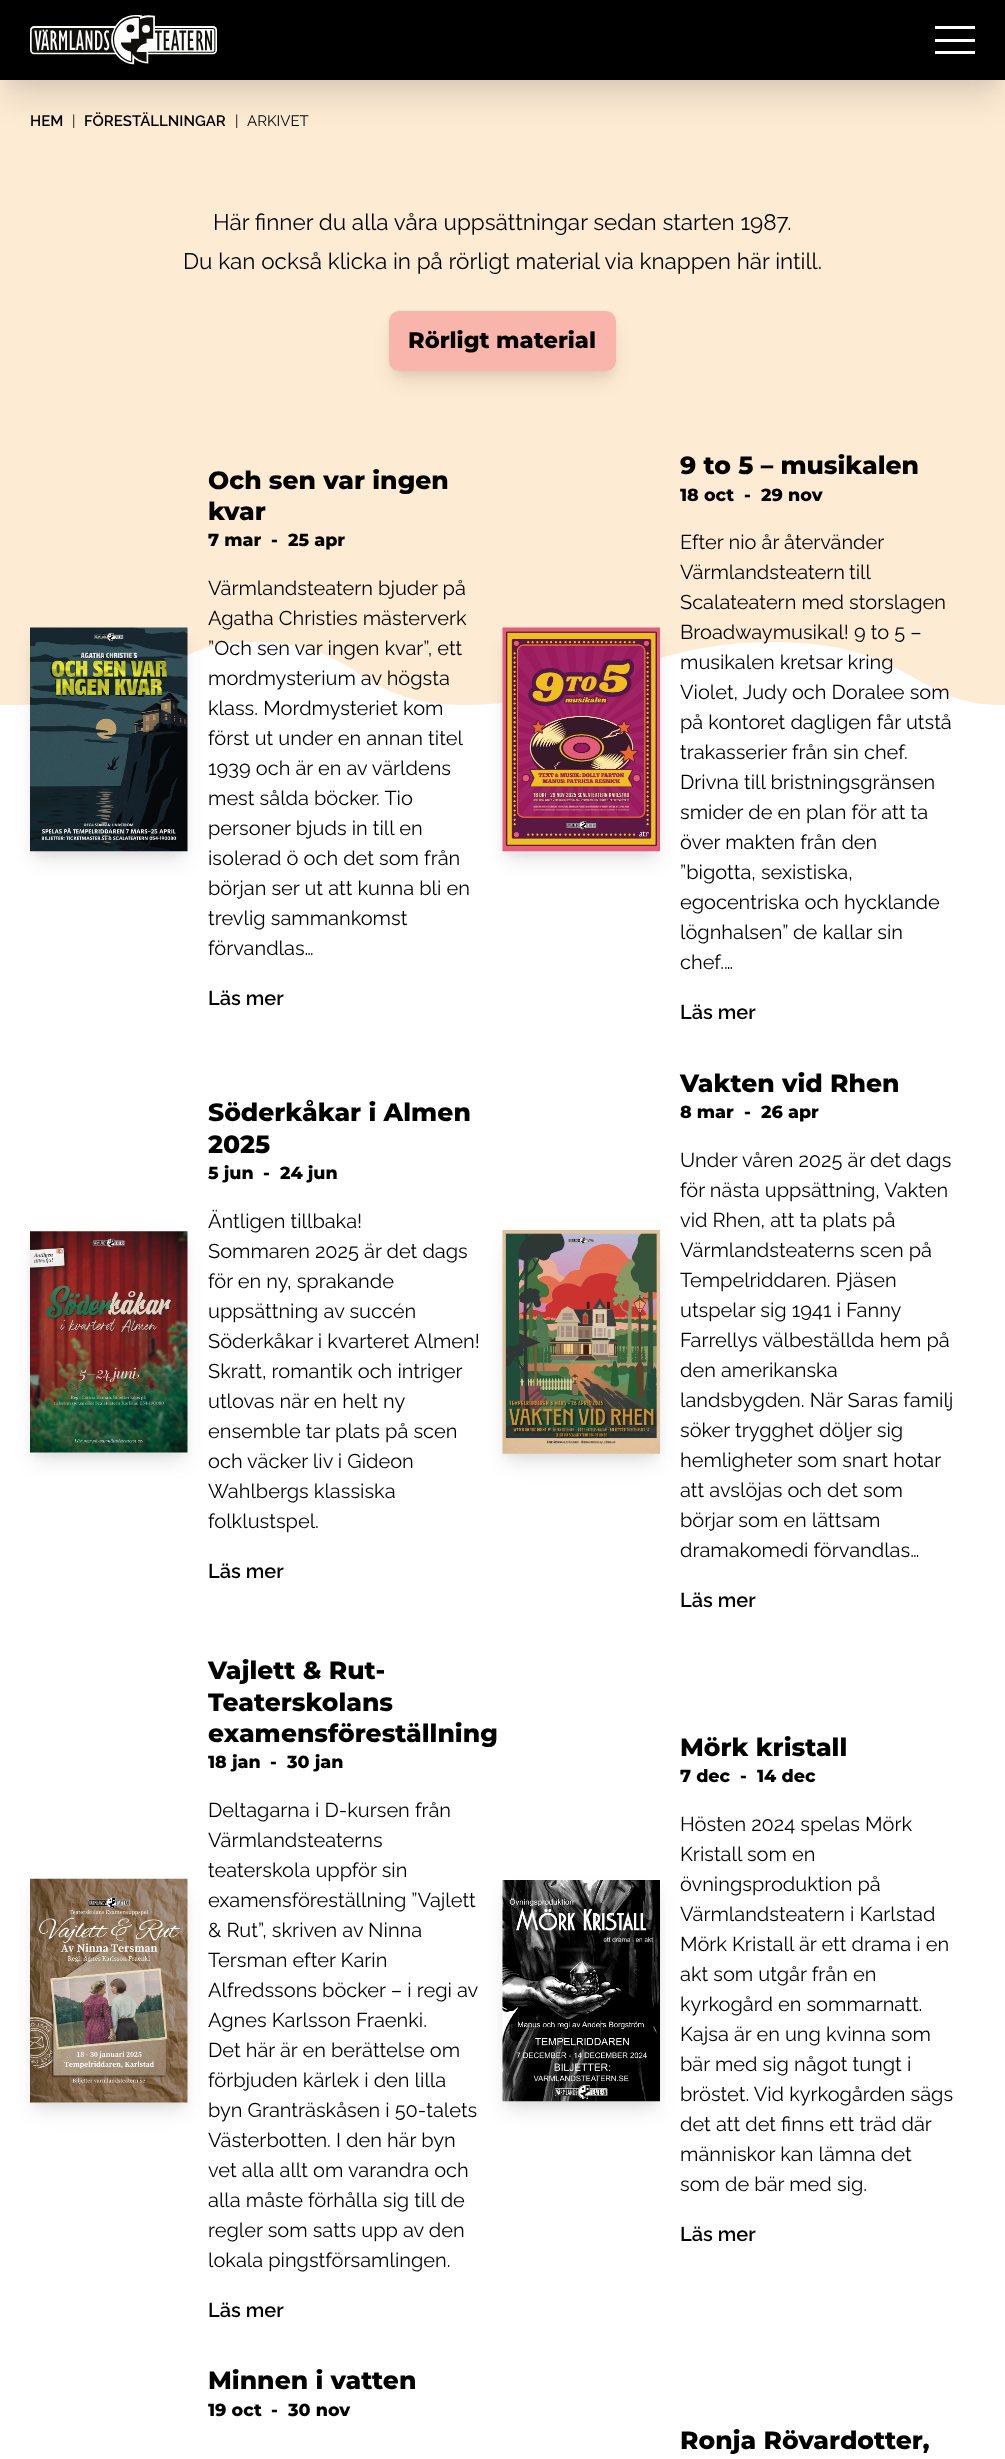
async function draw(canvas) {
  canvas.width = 1005
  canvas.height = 2459
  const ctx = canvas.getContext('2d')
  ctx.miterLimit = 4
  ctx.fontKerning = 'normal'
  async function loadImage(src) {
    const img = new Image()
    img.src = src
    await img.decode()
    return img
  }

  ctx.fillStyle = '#fff'
  ctx.fillRect(0, 0, 1005, 2459)
  ctx.fillStyle = '#fdebd3'
  ctx.beginPath()
  ctx.moveTo(259, 642)
  ctx.bezierCurveTo(150, 639, 182, 705, 0, 705)
  ctx.lineTo(0, 80)
  ctx.lineTo(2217, 80)
  ctx.lineTo(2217, 705)
  ctx.bezierCurveTo(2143, 705, 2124, 642, 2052, 642)
  ctx.bezierCurveTo(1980, 642, 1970, 705, 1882, 705)
  ctx.bezierCurveTo(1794, 705, 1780, 642, 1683, 642)
  ctx.bezierCurveTo(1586, 642, 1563, 705, 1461, 705)
  ctx.bezierCurveTo(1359, 705, 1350, 642, 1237, 642)
  ctx.bezierCurveTo(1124, 642, 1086, 705, 1001, 705)
  ctx.bezierCurveTo(915, 705, 910, 642, 774, 642)
  ctx.bezierCurveTo(637, 642, 580, 705, 466, 705)
  ctx.bezierCurveTo(353, 705, 367, 645, 259, 642)
  ctx.closePath()
  ctx.fill()
  ctx.fillStyle = '#0000000a'
  ctx.filter = 'blur(6px)'
  ctx.beginPath()
  ctx.rect(6, 19, 993, 67)
  ctx.fill()
  ctx.filter = 'none'
  ctx.fillStyle = '#0000001a'
  ctx.filter = 'blur(15.5px)'
  ctx.beginPath()
  ctx.rect(6, 31, 993, 68)
  ctx.fill()
  ctx.filter = 'none'
  ctx.fillStyle = '#000'
  ctx.fillRect(0, 0, 1005, 80)
  ctx.drawImage(await loadImage('image0.png'), 30, 15, 187, 50)
  ctx.fillStyle = '#fff'
  ctx.fillRect(935, 26, 40, 3)
  ctx.fillRect(935, 39, 40, 3)
  ctx.fillRect(935, 51, 40, 3)
  ctx.font = '600 15px Raleway'
  ctx.fillStyle = '#000'
  ctx.fillText('HEM', 30, 126)
  ctx.font = '15px Raleway'
  ctx.fillText('|', 72, 126)
  ctx.font = '600 15px Raleway'
  ctx.fillText('FÖRESTÄLLNINGAR', 84, 126)
  ctx.font = '15px Raleway'
  ctx.fillText('|', 235, 126)
  ctx.fillText('ARKIVET', 247, 126)
  ctx.font = '22.5px Raleway'
  ctx.fillText('Här finner du alla våra uppsättningar sedan starten 1987.', 213, 230)
  ctx.fillText('Du kan också klicka in på rörligt material via knappen här intill.', 183, 269)
  ctx.fillStyle = '#0000000d'
  ctx.filter = 'blur(4px)'
  ctx.beginPath()
  ctx.roundRect(391, 319, 223, 55, 8)
  ctx.fill()
  ctx.filter = 'none'
  ctx.fillStyle = '#0000001a'
  ctx.filter = 'blur(9.5px)'
  ctx.beginPath()
  ctx.roundRect(393, 328, 220, 52, 6)
  ctx.fill()
  ctx.filter = 'none'
  ctx.fillStyle = '#f9b4ab'
  ctx.beginPath()
  ctx.roundRect(389, 311, 227, 60, 10)
  ctx.fill()
  ctx.font = '100 22.5px Montserrat'
  ctx.fillStyle = '#000'
  ctx.fillText('Rörligt material', 408, 348)
  ctx.fillStyle = '#0000000d'
  ctx.filter = 'blur(4px)'
  ctx.beginPath()
  ctx.rect(33, 635, 152, 219)
  ctx.fill()
  ctx.filter = 'none'
  ctx.fillStyle = '#0000001a'
  ctx.filter = 'blur(9.5px)'
  ctx.beginPath()
  ctx.rect(34, 644, 150, 216)
  ctx.fill()
  ctx.filter = 'none'
  ctx.drawImage(await loadImage('image1.png'), 30, 627, 158, 225)
  ctx.font = '100 25px Montserrat'
  ctx.fillStyle = '#000'
  ctx.fillText('Och sen var ingen', 208, 489)
  ctx.fillText('kvar', 208, 520)
  ctx.font = '100 17.5px Montserrat'
  ctx.fillText('7 mar', 208, 546)
  ctx.fillText('-', 271, 546)
  ctx.fillText('25 apr', 288, 546)
  ctx.font = '20px Raleway'
  ctx.fillText('Värmlandsteatern bjuder på', 208, 595)
  ctx.fillText('Agatha Christies mästerverk', 208, 625)
  ctx.fillText('”Och sen var ingen kvar”, ett', 208, 655)
  ctx.fillText('mordmysterium av högsta', 208, 685)
  ctx.fillText('klass. Mordmysteriet kom', 208, 715)
  ctx.fillText('först ut under en annan titel', 208, 745)
  ctx.fillText('1939 och är en av världens', 208, 775)
  ctx.fillText('mest sålda böcker. Tio', 208, 805)
  ctx.fillText('personer bjuds in till en', 208, 835)
  ctx.fillText('isolerad ö och det som från', 208, 865)
  ctx.fillText('början ser ut att kunna bli en', 208, 895)
  ctx.fillText('trevlig sammankomst', 208, 925)
  ctx.fillText('förvandlas…', 208, 955)
  ctx.font = '600 20px Raleway'
  ctx.fillText('Läs mer', 208, 1005)
  ctx.fillStyle = '#0000000d'
  ctx.filter = 'blur(4px)'
  ctx.beginPath()
  ctx.rect(505, 635, 153, 219)
  ctx.fill()
  ctx.filter = 'none'
  ctx.fillStyle = '#0000001a'
  ctx.filter = 'blur(9.5px)'
  ctx.beginPath()
  ctx.rect(506, 644, 150, 216)
  ctx.fill()
  ctx.filter = 'none'
  ctx.drawImage(await loadImage('image2.png'), 502, 627, 158, 225)
  ctx.font = '100 25px Montserrat'
  ctx.fillStyle = '#000'
  ctx.fillText('9 to 5 – musikalen', 680, 474)
  ctx.font = '100 17.5px Montserrat'
  ctx.fillText('18 oct', 680, 501)
  ctx.fillText('-', 744, 501)
  ctx.fillText('29 nov', 761, 501)
  ctx.font = '20px Raleway'
  ctx.fillText('Efter nio år återvänder', 680, 549)
  ctx.wordSpacing = '-1px'
  ctx.fillText('Värmlandsteatern till', 680, 579)
  ctx.wordSpacing = '0px'
  ctx.fillText('Scalateatern med storslagen', 680, 609)
  ctx.fillText('Broadwaymusikal! 9 to 5 –', 680, 639)
  ctx.fillText('musikalen kretsar kring', 680, 669)
  ctx.fillText('Violet, Judy och Doralee som', 680, 699)
  ctx.fillText('på kontoret dagligen får utstå', 680, 729)
  ctx.fillText('trakasserier från sin chef.', 680, 759)
  ctx.fillText('Drivna till bristningsgränsen', 680, 789)
  ctx.fillText('smider de en plan för att ta', 680, 819)
  ctx.fillText('över makten från den', 680, 849)
  ctx.fillText('”bigotta, sexistiska,', 680, 879)
  ctx.fillText('egocentriska och hycklande', 680, 909)
  ctx.fillText('lögnhalsen” de kallar sin', 680, 939)
  ctx.fillText('chef.…', 680, 969)
  ctx.font = '600 20px Raleway'
  ctx.fillText('Läs mer', 680, 1019)
  ctx.fillStyle = '#0000000d'
  ctx.filter = 'blur(4px)'
  ctx.beginPath()
  ctx.rect(33, 1239, 152, 216)
  ctx.fill()
  ctx.filter = 'none'
  ctx.fillStyle = '#0000001a'
  ctx.filter = 'blur(9.5px)'
  ctx.beginPath()
  ctx.rect(34, 1248, 150, 213)
  ctx.fill()
  ctx.filter = 'none'
  ctx.drawImage(await loadImage('image3.png'), 30, 1231, 158, 222)
  ctx.font = '100 25px Montserrat'
  ctx.fillStyle = '#000'
  ctx.fillText('Söderkåkar i Almen', 208, 1121)
  ctx.fillText('2025', 208, 1153)
  ctx.font = '100 17.5px Montserrat'
  ctx.fillText('5 jun', 208, 1179)
  ctx.fillText('-', 263, 1179)
  ctx.fillText('24 jun', 280, 1179)
  ctx.font = '20px Raleway'
  ctx.fillText('Äntligen tillbaka!', 208, 1228)
  ctx.fillText('Sommaren 2025 är det dags', 208, 1258)
  ctx.fillText('för en ny, sprakande', 208, 1288)
  ctx.fillText('uppsättning av succén', 208, 1318)
  ctx.fillText('Söderkåkar i kvarteret Almen!', 208, 1348)
  ctx.fillText('Skratt, romantik och intriger', 208, 1378)
  ctx.fillText('utlovas när en helt ny', 208, 1408)
  ctx.fillText('ensemble tar plats på scen', 208, 1438)
  ctx.fillText('och väcker liv i Gideon', 208, 1468)
  ctx.fillText('Wahlbergs klassiska', 208, 1498)
  ctx.fillText('folklustspel.', 208, 1528)
  ctx.font = '600 20px Raleway'
  ctx.fillText('Läs mer', 208, 1578)
  ctx.fillStyle = '#0000000d'
  ctx.filter = 'blur(4px)'
  ctx.beginPath()
  ctx.rect(505, 1238, 153, 218)
  ctx.fill()
  ctx.filter = 'none'
  ctx.fillStyle = '#0000001a'
  ctx.filter = 'blur(9.5px)'
  ctx.beginPath()
  ctx.rect(506, 1246, 150, 217)
  ctx.fill()
  ctx.filter = 'none'
  ctx.drawImage(await loadImage('image4.png'), 502, 1230, 158, 224)
  ctx.font = '100 25px Montserrat'
  ctx.fillStyle = '#000'
  ctx.fillText('Vakten vid Rhen', 680, 1092)
  ctx.font = '100 17.5px Montserrat'
  ctx.fillText('8 mar', 680, 1118)
  ctx.fillText('-', 744, 1118)
  ctx.fillText('26 apr', 761, 1118)
  ctx.font = '20px Raleway'
  ctx.fillText('Under våren 2025 är det dags', 680, 1167)
  ctx.fillText('för nästa uppsättning, Vakten', 680, 1197)
  ctx.fillText('vid Rhen, att ta plats på', 680, 1227)
  ctx.fillText('Värmlandsteaterns scen på', 680, 1257)
  ctx.fillText('Tempelriddaren. Pjäsen', 680, 1287)
  ctx.fillText('utspelar sig 1941 i Fanny', 680, 1317)
  ctx.fillText('Farrellys välbeställda hem på', 680, 1347)
  ctx.fillText('den amerikanska', 680, 1377)
  ctx.fillText('landsbygden. När Saras familj', 680, 1407)
  ctx.fillText('söker trygghet döljer sig', 680, 1437)
  ctx.fillText('hemligheter som snart hotar', 680, 1467)
  ctx.fillText('att avslöjas och det som', 680, 1497)
  ctx.fillText('börjar som en lättsam', 680, 1527)
  ctx.fillText('dramakomedi förvandlas…', 680, 1557)
  ctx.font = '600 20px Raleway'
  ctx.fillText('Läs mer', 680, 1607)
  ctx.fillStyle = '#0000000d'
  ctx.filter = 'blur(4px)'
  ctx.beginPath()
  ctx.rect(33, 1886, 152, 219)
  ctx.fill()
  ctx.filter = 'none'
  ctx.fillStyle = '#0000001a'
  ctx.filter = 'blur(9.5px)'
  ctx.beginPath()
  ctx.rect(34, 1895, 150, 216)
  ctx.fill()
  ctx.filter = 'none'
  ctx.drawImage(await loadImage('image5.png'), 30, 1878, 158, 225)
  ctx.font = '100 25px Montserrat'
  ctx.fillStyle = '#000'
  ctx.fillText('Vajlett & Rut-', 208, 1679)
  ctx.fillText('Teaterskolans', 208, 1711)
  ctx.fillText('examensföreställning', 208, 1742)
  ctx.font = '100 17.5px Montserrat'
  ctx.fillText('18 jan', 208, 1768)
  ctx.fillText('-', 270, 1768)
  ctx.fillText('30 jan', 287, 1768)
  ctx.font = '20px Raleway'
  ctx.fillText('Deltagarna i D-kursen från', 208, 1817)
  ctx.fillText('Värmlandsteaterns', 208, 1847)
  ctx.fillText('teaterskola uppför sin', 208, 1877)
  ctx.fillText('examensföreställning ”Vajlett', 208, 1907)
  ctx.fillText('& Rut”, skriven av Ninna', 208, 1937)
  ctx.fillText('Tersman efter Karin', 208, 1967)
  ctx.fillText('Alfredssons böcker – i regi av', 208, 1997)
  ctx.fillText('Agnes Karlsson Fraenki.', 208, 2027)
  ctx.fillText('Det här är en berättelse om', 208, 2057)
  ctx.fillText('förbjuden kärlek i den lilla', 208, 2087)
  ctx.fillText('byn Granträskåsen i 50-talets', 208, 2117)
  ctx.fillText('Västerbotten. I den här byn', 208, 2147)
  ctx.fillText('vet alla allt om varandra och', 208, 2177)
  ctx.fillText('alla måste förhålla sig till de', 208, 2207)
  ctx.fillText('regler som satts upp av den', 208, 2237)
  ctx.fillText('lokala pingstförsamlingen.', 208, 2267)
  ctx.font = '600 20px Raleway'
  ctx.fillText('Läs mer', 208, 2317)
  ctx.fillStyle = '#0000000d'
  ctx.filter = 'blur(4px)'
  ctx.beginPath()
  ctx.rect(505, 1888, 153, 216)
  ctx.fill()
  ctx.filter = 'none'
  ctx.fillStyle = '#0000001a'
  ctx.filter = 'blur(9.5px)'
  ctx.beginPath()
  ctx.rect(506, 1896, 150, 214)
  ctx.fill()
  ctx.filter = 'none'
  ctx.drawImage(await loadImage('image6.png'), 502, 1880, 158, 222)
  ctx.font = '100 25px Montserrat'
  ctx.fillStyle = '#000'
  ctx.fillText('Mörk kristall', 680, 1756)
  ctx.font = '100 17.5px Montserrat'
  ctx.fillText('7 dec', 680, 1782)
  ctx.fillText('-', 740, 1782)
  ctx.fillText('14 dec', 757, 1782)
  ctx.font = '20px Raleway'
  ctx.fillText('Hösten 2024 spelas Mörk', 680, 1831)
  ctx.fillText('Kristall som en', 680, 1861)
  ctx.fillText('övningsproduktion på', 680, 1891)
  ctx.fillText('Värmlandsteatern i Karlstad', 680, 1921)
  ctx.fillText('Mörk Kristall är ett drama i en', 680, 1951)
  ctx.fillText('akt som utgår från en', 680, 1981)
  ctx.fillText('kyrkogård en sommarnatt.', 680, 2011)
  ctx.fillText('Kajsa är en ung kvinna som', 680, 2041)
  ctx.fillText('bär med sig något tungt i', 680, 2071)
  ctx.fillText('bröstet. Vid kyrkogården sägs', 680, 2101)
  ctx.fillText('det att det finns ett träd där', 680, 2131)
  ctx.fillText('människor kan lämna det', 680, 2161)
  ctx.fillText('som de bär med sig.', 680, 2191)
  ctx.font = '600 20px Raleway'
  ctx.fillText('Läs mer', 680, 2241)
  ctx.font = '100 25px Montserrat'
  ctx.fillText('Minnen i vatten', 208, 2389)
  ctx.font = '100 17.5px Montserrat'
  ctx.fillText('19 oct', 208, 2416)
  ctx.fillText('-', 271, 2416)
  ctx.fillText('30 nov', 288, 2416)
  ctx.font = '100 25px Montserrat'
  ctx.fillText('Ronja Rövardotter,', 680, 2449)
}

draw(document.querySelector('canvas'))
